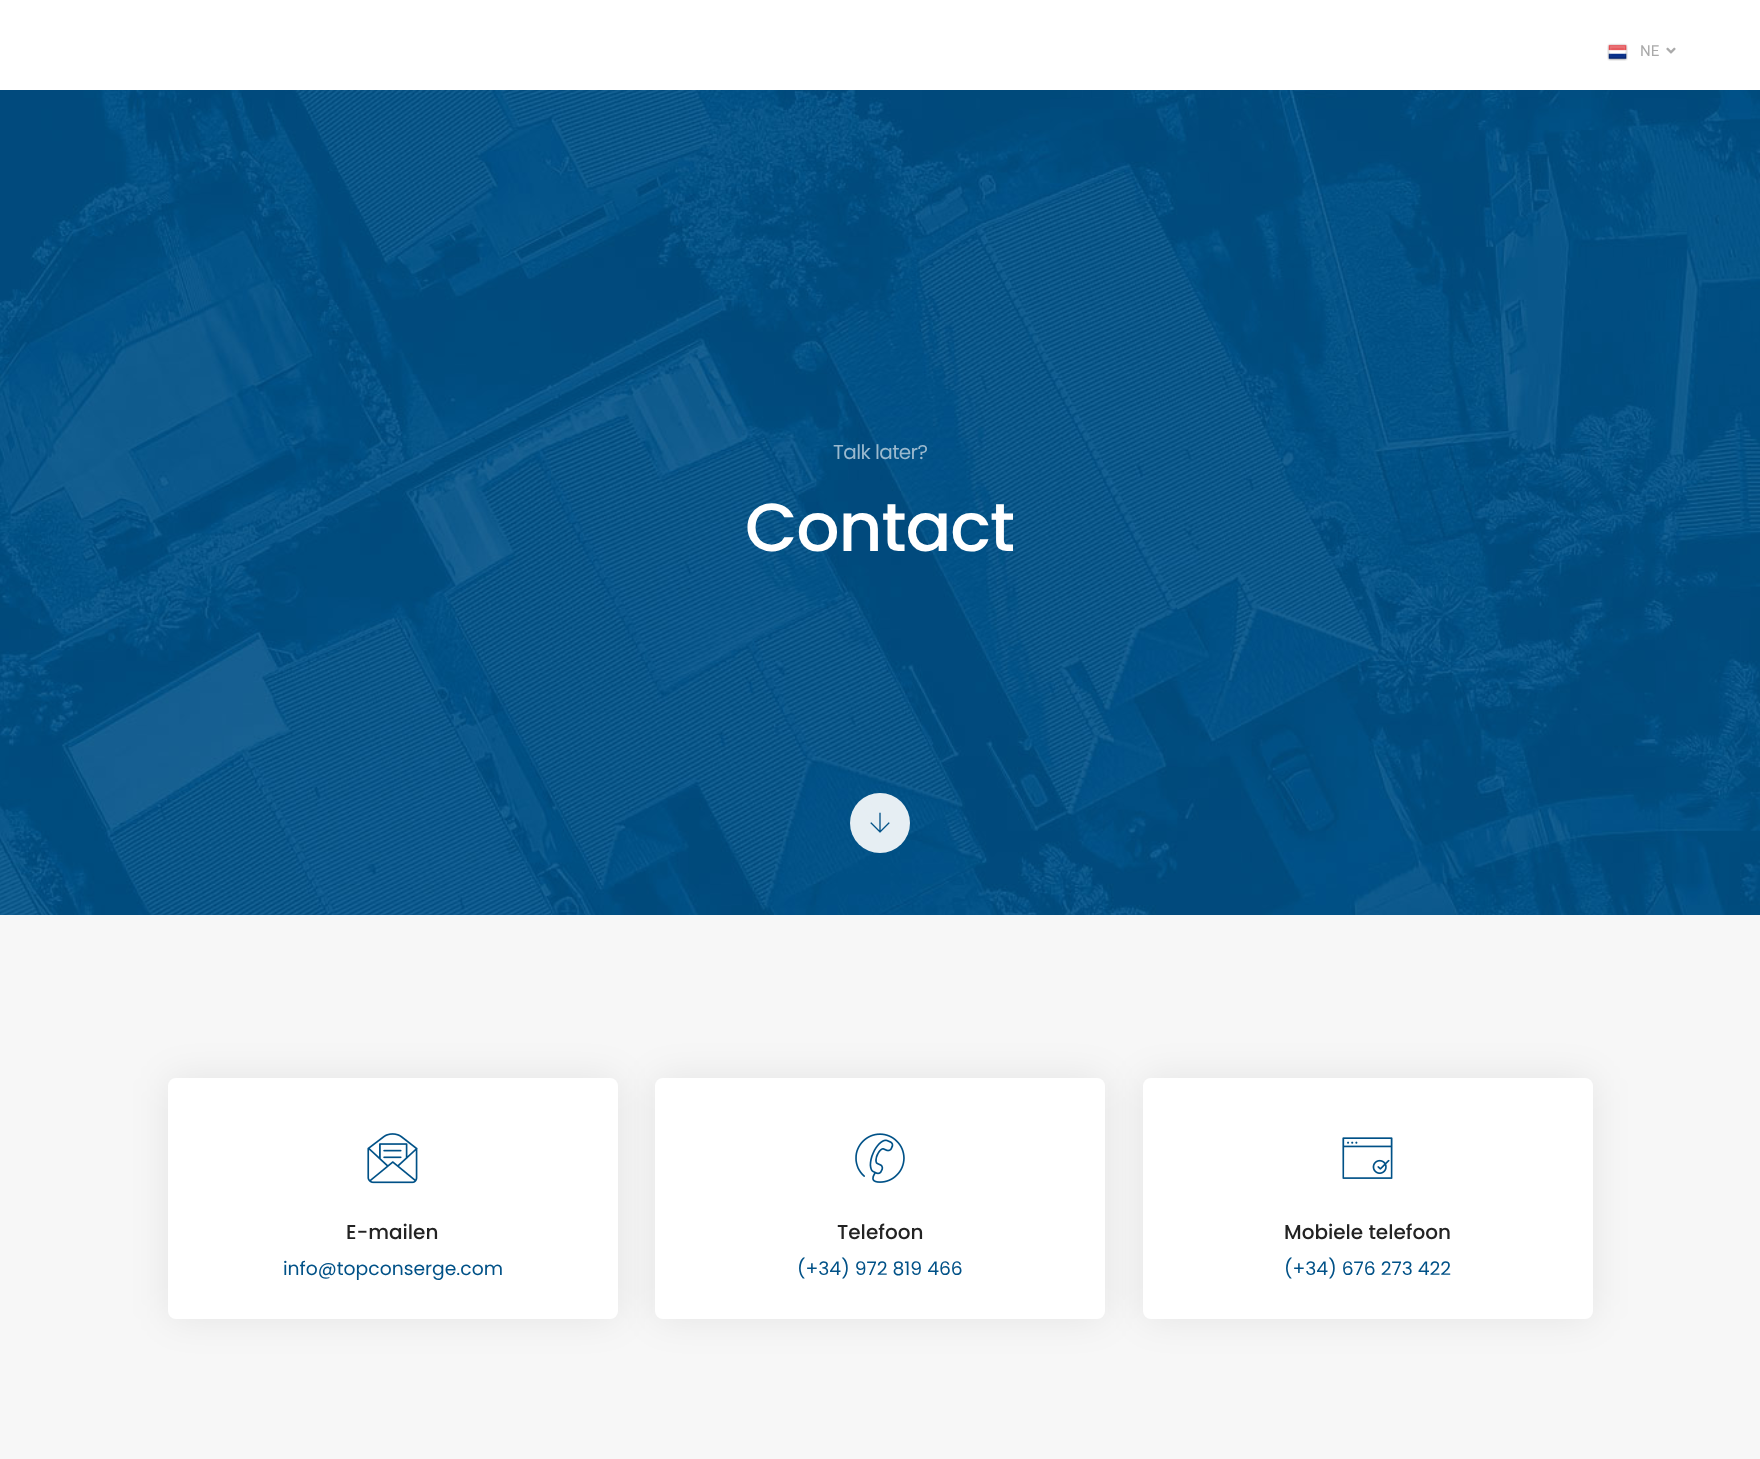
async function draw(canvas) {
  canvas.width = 1760
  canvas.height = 1459
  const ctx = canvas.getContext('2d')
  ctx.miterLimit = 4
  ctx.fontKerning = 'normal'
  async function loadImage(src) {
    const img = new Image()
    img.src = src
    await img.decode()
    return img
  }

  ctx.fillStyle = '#fff'
  ctx.fillRect(0, 0, 1760, 1459)
  ctx.drawImage(await loadImage('image0.png'), 1607, 43, 21, 18)
  ctx.font = '15px Roboto'
  ctx.fillStyle = '#aaa'
  ctx.fillText('NE', 1640, 56)
  ctx.drawImage(await loadImage('image1.png'), 1666, 47, 10, 7)
  ctx.drawImage(await loadImage('image2.png'), 0, 90, 1760, 825)
  ctx.letterSpacing = '-0.6px'
  ctx.font = '20px Poppins'
  ctx.fillStyle = '#9ab9ce'
  ctx.fillText('Talk later?', 833, 459)
  ctx.letterSpacing = '-1.25px'
  ctx.font = '500 68px Poppins'
  ctx.fillStyle = '#fff'
  ctx.fillText('Contact', 745, 551)
  ctx.fillStyle = '#ffffffe6'
  ctx.beginPath()
  ctx.arc(880, 823, 30, 0, 2 * Math.PI)
  ctx.fill()
  ctx.drawImage(await loadImage('image3.png'), 870, 812, 20, 21)
  ctx.fillStyle = '#f7f7f7'
  ctx.fillRect(0, 915, 1760, 544)
  ctx.fillStyle = '#00000014'
  ctx.filter = 'blur(19px)'
  ctx.beginPath()
  ctx.roundRect(168, 1078, 450, 241, 8)
  ctx.fill()
  ctx.filter = 'none'
  ctx.fillStyle = '#fff'
  ctx.beginPath()
  ctx.roundRect(168, 1078, 450, 241, 8)
  ctx.fill()
  ctx.drawImage(await loadImage('image4.png'), 367, 1133, 51, 51)
  ctx.letterSpacing = '0px'
  ctx.font = '500 20px Poppins'
  ctx.fillStyle = '#232323'
  ctx.fillText('E-mailen', 346, 1239)
  ctx.font = '18.75px Poppins'
  ctx.fillStyle = '#005187'
  ctx.fillText('info@topconserge.com', 283, 1275)
  ctx.fillStyle = '#00000014'
  ctx.filter = 'blur(19px)'
  ctx.beginPath()
  ctx.roundRect(655, 1078, 450, 241, 8)
  ctx.fill()
  ctx.filter = 'none'
  ctx.fillStyle = '#fff'
  ctx.beginPath()
  ctx.roundRect(655, 1078, 450, 241, 8)
  ctx.fill()
  ctx.drawImage(await loadImage('image5.png'), 855, 1133, 50, 50)
  ctx.font = '500 20px Poppins'
  ctx.fillStyle = '#232323'
  ctx.fillText('Telefoon', 837, 1239)
  ctx.font = '18.75px Poppins'
  ctx.fillStyle = '#005187'
  ctx.fillText('(+34) 972 819 466', 797, 1275)
  ctx.fillStyle = '#00000014'
  ctx.filter = 'blur(19px)'
  ctx.beginPath()
  ctx.roundRect(1143, 1078, 450, 241, 8)
  ctx.fill()
  ctx.filter = 'none'
  ctx.fillStyle = '#fff'
  ctx.beginPath()
  ctx.roundRect(1143, 1078, 450, 241, 8)
  ctx.fill()
  ctx.drawImage(await loadImage('image6.png'), 1342, 1137, 51, 42)
  ctx.font = '500 20px Poppins'
  ctx.fillStyle = '#232323'
  ctx.fillText('Mobiele telefoon', 1284, 1239)
  ctx.font = '18.75px Poppins'
  ctx.fillStyle = '#005187'
  ctx.fillText('(+34) 676 273 422', 1284, 1275)
}

draw(document.querySelector('canvas'))
